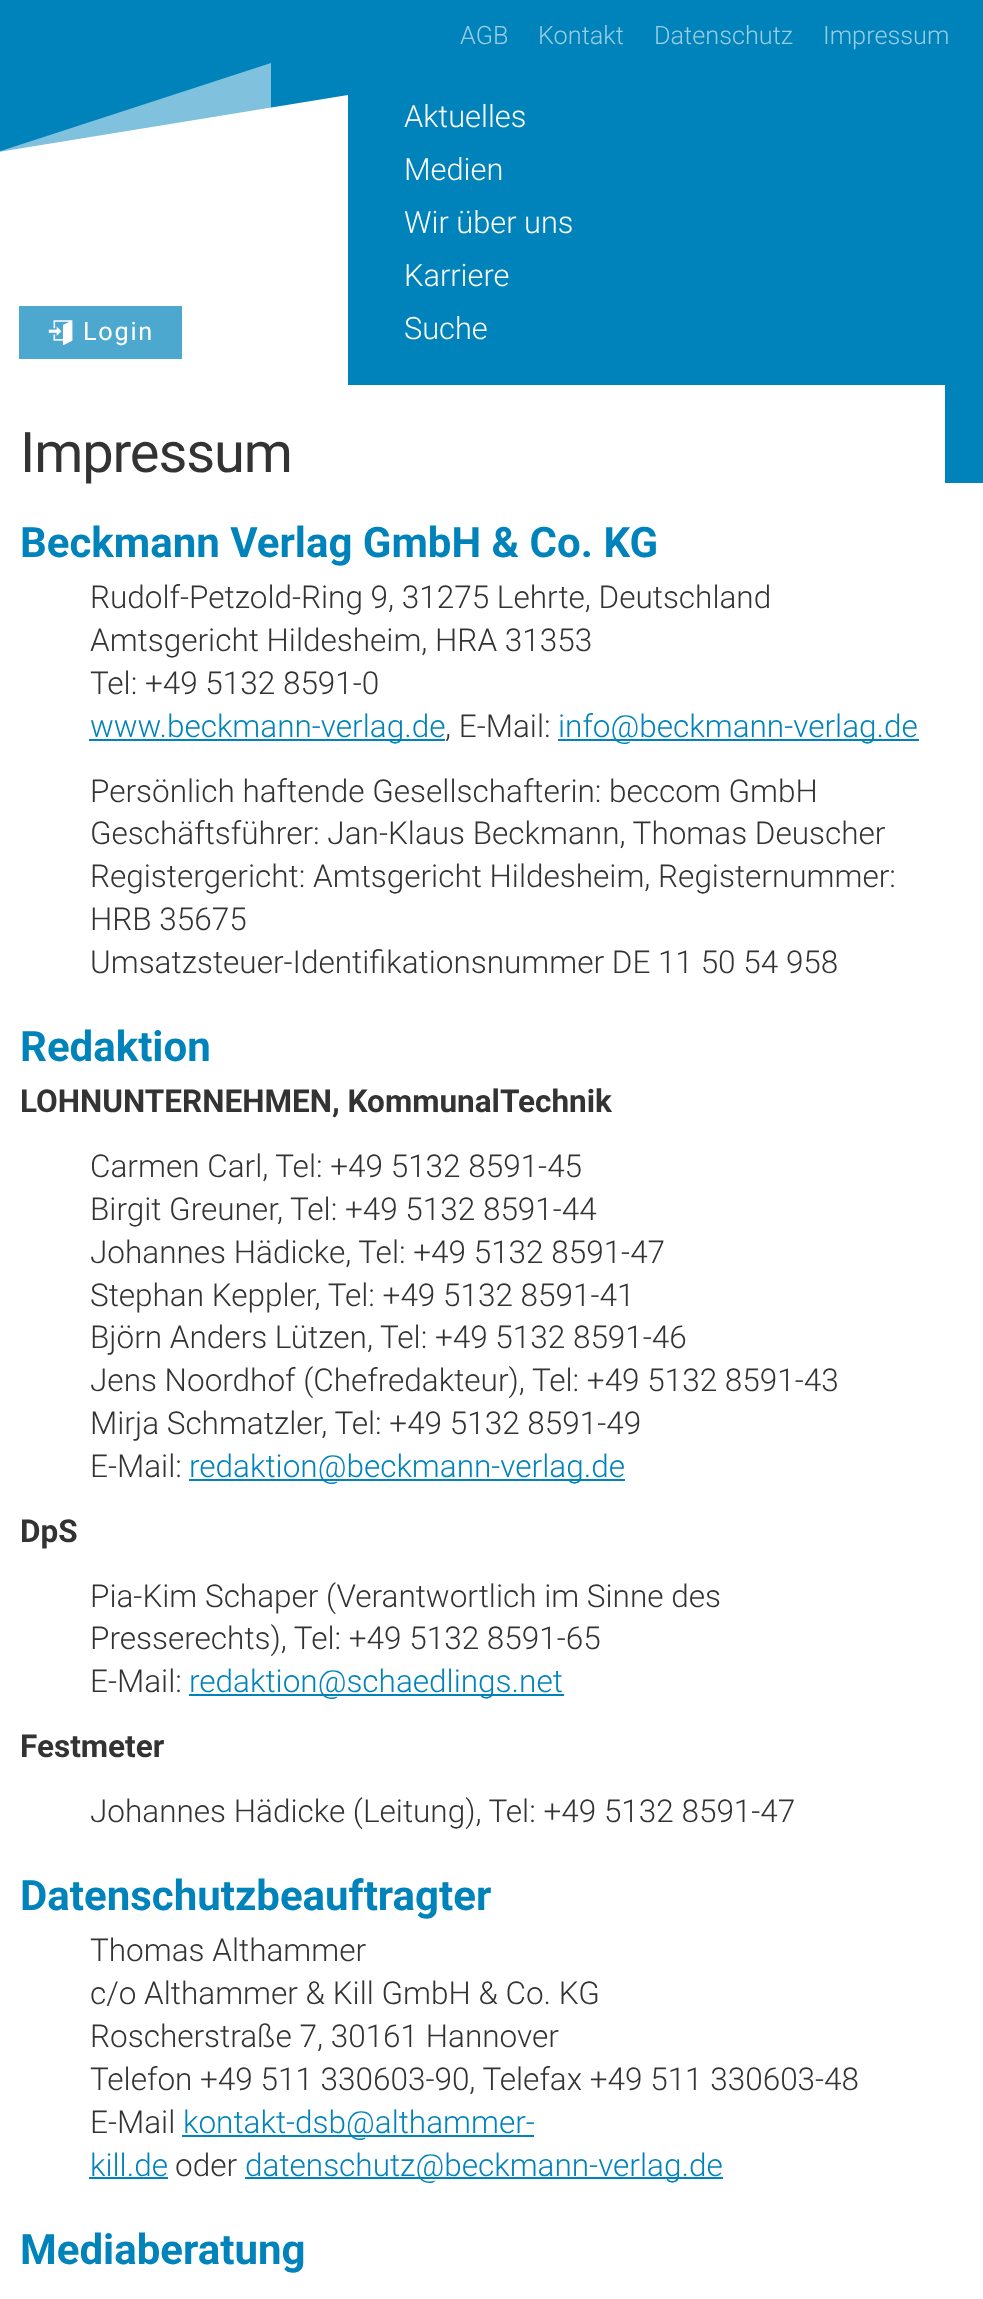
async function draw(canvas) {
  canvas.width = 983
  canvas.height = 2299
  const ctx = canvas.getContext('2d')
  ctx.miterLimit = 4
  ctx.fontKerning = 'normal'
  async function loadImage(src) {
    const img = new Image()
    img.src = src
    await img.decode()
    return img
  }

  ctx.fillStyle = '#fff'
  ctx.fillRect(0, 0, 983, 2299)
  ctx.fillStyle = '#0083bb'
  ctx.fillRect(0, 0, 983, 483)
  ctx.font = '300 25.25px Roboto'
  ctx.fillStyle = '#99cde4'
  ctx.fillText('AGB', 460, 44)
  ctx.fillText('Kontakt', 538, 44)
  ctx.fillText('Datenschutz', 654, 44)
  ctx.fillText('Impressum', 823, 44)
  ctx.fillStyle = '#fff'
  ctx.fillRect(0, 152, 348, 233)
  ctx.fillStyle = '#4da8cf'
  ctx.fillRect(19, 306, 163, 53)
  ctx.drawImage(await loadImage('image0.png'), 48, 320, 25, 25)
  ctx.letterSpacing = '1.75px'
  ctx.font = '25.25px Roboto'
  ctx.fillStyle = '#fff'
  ctx.fillText('Login', 83, 340)
  ctx.letterSpacing = '0px'
  ctx.font = '300 30.75px Roboto'
  ctx.fillText('Aktuelles', 404, 127)
  ctx.fillText('Medien', 404, 180)
  ctx.fillText('Wir über uns', 404, 233)
  ctx.fillText('Karriere', 404, 286)
  ctx.fillText('Suche', 404, 339)
  ctx.beginPath()
  ctx.moveTo(348, 95)
  ctx.lineTo(348, 152)
  ctx.lineTo(-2, 152)
  ctx.closePath()
  ctx.fill()
  ctx.fillStyle = '#ffffff80'
  ctx.beginPath()
  ctx.moveTo(271, 63)
  ctx.lineTo(271, 152)
  ctx.lineTo(-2, 152)
  ctx.closePath()
  ctx.fill()
  ctx.fillStyle = '#fff'
  ctx.fillRect(0, 385, 945, 98)
  ctx.letterSpacing = '-1.1px'
  ctx.font = '56px Roboto'
  ctx.fillStyle = '#333'
  ctx.fillText('Impressum', 20, 472)
  ctx.letterSpacing = '0px'
  ctx.font = 'bold 42px Roboto'
  ctx.fillStyle = '#0083bb'
  ctx.fillText('Beckmann Verlag GmbH & Co. KG', 20, 557)
  ctx.font = '300 31.5px Roboto'
  ctx.fillStyle = '#333'
  ctx.fillText('Rudolf-Petzold-Ring 9, 31275 Lehrte, Deutschland', 90, 608)
  ctx.fillText('Amtsgericht Hildesheim, HRA 31353', 90, 651)
  ctx.fillText('Tel: +49 5132 8591-0', 90, 694)
  ctx.fillStyle = '#0083bb'
  ctx.fillRect(89, 739, 356, 2)
  ctx.fillText('www.beckmann-verlag.de', 90, 737)
  ctx.fillStyle = '#333'
  ctx.fillText(', E-Mail:', 445, 737)
  ctx.fillStyle = '#0083bb'
  ctx.fillRect(558, 739, 361, 2)
  ctx.fillText('info@beckmann-verlag.de', 558, 737)
  ctx.fillStyle = '#333'
  ctx.fillText('Persönlich haftende Gesellschafterin: beccom GmbH', 90, 802)
  ctx.fillText('Geschäftsführer: Jan-Klaus Beckmann, Thomas Deuscher', 90, 844)
  ctx.fillText('Registergericht: Amtsgericht Hildesheim, Registernummer:', 90, 887)
  ctx.fillText('HRB 35675', 90, 930)
  ctx.fillText('Umsatzsteuer-Identifikationsnummer DE 11 50 54 958', 90, 973)
  ctx.font = 'bold 42px Roboto'
  ctx.fillStyle = '#0083bb'
  ctx.fillText('Redaktion', 20, 1061)
  ctx.font = 'bold 31.5px Roboto'
  ctx.fillStyle = '#333'
  ctx.fillText('LOHNUNTERNEHMEN, KommunalTechnik', 20, 1112)
  ctx.font = '300 31.5px Roboto'
  ctx.fillText('Carmen Carl, Tel: +49 5132 8591-45', 90, 1177)
  ctx.fillText('Birgit Greuner, Tel: +49 5132 8591-44', 90, 1220)
  ctx.fillText('Johannes Hädicke, Tel: +49 5132 8591-47', 90, 1263)
  ctx.fillText('Stephan Keppler, Tel: +49 5132 8591-41', 90, 1306)
  ctx.fillText('Björn Anders Lützen, Tel: +49 5132 8591-46', 90, 1348)
  ctx.fillText('Jens Noordhof (Chefredakteur), Tel: +49 5132 8591-43', 90, 1391)
  ctx.fillText('Mirja Schmatzler, Tel: +49 5132 8591-49', 90, 1434)
  ctx.fillText('E-Mail:', 90, 1477)
  ctx.fillStyle = '#0083bb'
  ctx.fillRect(189, 1479, 436, 2)
  ctx.fillText('redaktion@beckmann-verlag.de', 189, 1477)
  ctx.font = 'bold 31.5px Roboto'
  ctx.fillStyle = '#333'
  ctx.fillText('DpS', 20, 1542)
  ctx.font = '300 31.5px Roboto'
  ctx.fillText('Pia-Kim Schaper (Verantwortlich im Sinne des', 90, 1607)
  ctx.fillText('Presserechts), Tel: +49 5132 8591-65', 90, 1649)
  ctx.fillText('E-Mail:', 90, 1692)
  ctx.fillStyle = '#0083bb'
  ctx.fillRect(189, 1694, 375, 2)
  ctx.fillText('redaktion@schaedlings.net', 189, 1692)
  ctx.font = 'bold 31.5px Roboto'
  ctx.fillStyle = '#333'
  ctx.fillText('Festmeter', 20, 1757)
  ctx.font = '300 31.5px Roboto'
  ctx.fillText('Johannes Hädicke (Leitung), Tel: +49 5132 8591-47', 90, 1822)
  ctx.font = 'bold 42px Roboto'
  ctx.fillStyle = '#0083bb'
  ctx.fillText('Datenschutzbeauftragter', 20, 1910)
  ctx.font = '300 31.5px Roboto'
  ctx.fillStyle = '#333'
  ctx.fillText('Thomas Althammer', 90, 1961)
  ctx.fillText('c/o Althammer & Kill GmbH & Co. KG', 90, 2004)
  ctx.fillText('Roscherstraße 7, 30161 Hannover', 90, 2047)
  ctx.fillText('Telefon +49 511 330603-90, Telefax +49 511 330603-48', 90, 2090)
  ctx.fillText('E-Mail', 90, 2133)
  ctx.fillStyle = '#0083bb'
  ctx.fillRect(182, 2135, 352, 2)
  ctx.fillText('kontakt-dsb@althammer-', 183, 2133)
  ctx.fillText('kill.de', 90, 2176)
  ctx.fillRect(89, 2177, 79, 2)
  ctx.fillStyle = '#333'
  ctx.fillText('oder', 175, 2176)
  ctx.fillStyle = '#0083bb'
  ctx.fillRect(245, 2177, 478, 2)
  ctx.fillText('datenschutz@beckmann-verlag.de', 245, 2176)
  ctx.font = 'bold 42px Roboto'
  ctx.fillText('Mediaberatung', 20, 2264)
}

draw(document.querySelector('canvas'))
